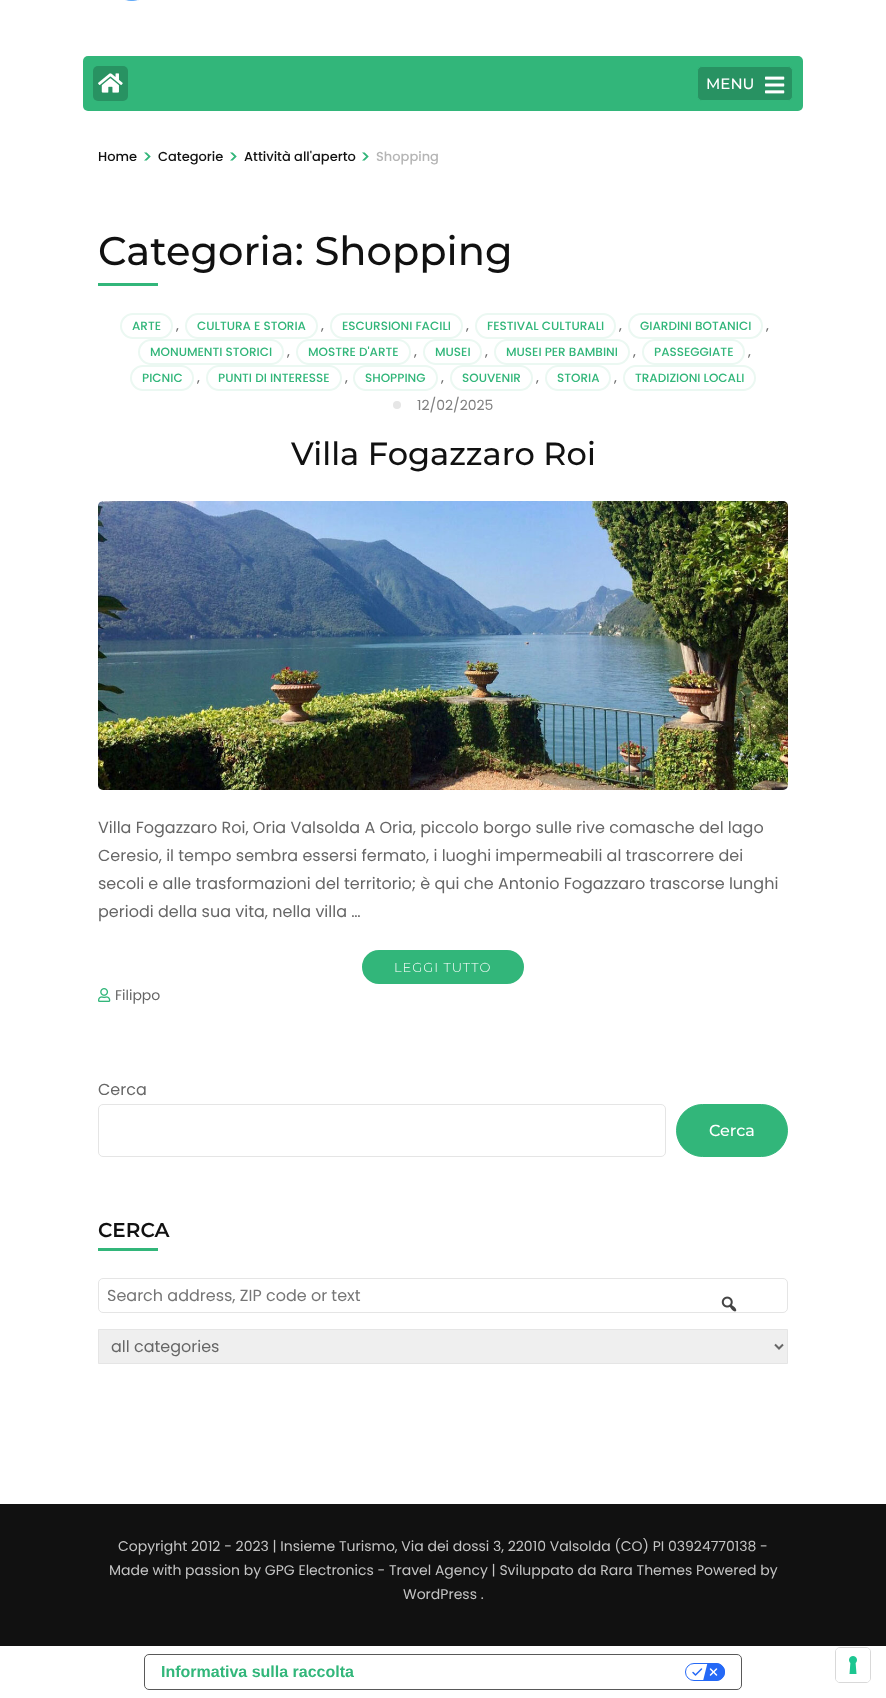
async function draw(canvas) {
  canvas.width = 886
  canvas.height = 1698
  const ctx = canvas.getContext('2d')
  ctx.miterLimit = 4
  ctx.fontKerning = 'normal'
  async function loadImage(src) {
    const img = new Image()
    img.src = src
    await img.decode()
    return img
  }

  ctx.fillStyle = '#fff'
  ctx.fillRect(0, 0, 886, 1698)
  ctx.drawImage(await loadImage('image0.png'), 125, 0, 14, 1)
  ctx.fillStyle = '#32b67a'
  ctx.beginPath()
  ctx.roundRect(83, 56, 720, 55, 5)
  ctx.fill()
  ctx.fillStyle = '#289262'
  ctx.beginPath()
  ctx.roundRect(93, 66, 35, 35, 5)
  ctx.fill()
  ctx.drawImage(await loadImage('image1.png'), 98, 73, 25, 20)
  ctx.beginPath()
  ctx.roundRect(697.5, 66.5, 95, 34, 4.5)
  ctx.fill()
  ctx.strokeStyle = '#32b67a'
  ctx.stroke()
  ctx.font = '500 15px Montserrat'
  ctx.fillStyle = '#fff'
  ctx.fillText('MENU', 706, 89)
  ctx.drawImage(await loadImage('image2.png'), 765, 76, 20, 18)
  ctx.font = '500 13px Poppins'
  ctx.fillStyle = '#111'
  ctx.fillText('Home', 98, 161)
  ctx.font = '500 18px Poppins'
  ctx.fillStyle = '#32b67a'
  ctx.fillText('>', 142, 163)
  ctx.font = '500 13px Poppins'
  ctx.fillStyle = '#111'
  ctx.fillText('Categorie', 158, 161)
  ctx.font = '500 18px Poppins'
  ctx.fillStyle = '#32b67a'
  ctx.fillText('>', 228, 163)
  ctx.font = '500 13px Poppins'
  ctx.fillStyle = '#111'
  ctx.fillText('Attività all\'aperto', 244, 161)
  ctx.font = '500 18px Poppins'
  ctx.fillStyle = '#32b67a'
  ctx.fillText('>', 360, 163)
  ctx.font = '500 13px Poppins'
  ctx.fillStyle = '#b5b5b5'
  ctx.fillText('Shopping', 376, 161)
  ctx.font = '500 40px Montserrat'
  ctx.fillStyle = '#111'
  ctx.fillText('Categoria: Shopping', 98, 265)
  ctx.fillStyle = '#32b67a'
  ctx.fillRect(98, 283, 60, 3)
  ctx.beginPath()
  ctx.roundRect(121, 314, 51, 24, 12)
  ctx.strokeStyle = '#ebf8f2'
  ctx.lineWidth = 2
  ctx.stroke()
  ctx.font = '500 12px Poppins'
  ctx.fillText('ARTE', 132, 330)
  ctx.fillStyle = '#666'
  ctx.fillText(',', 176, 330)
  ctx.beginPath()
  ctx.roundRect(186, 314, 131, 24, 12)
  ctx.stroke()
  ctx.fillStyle = '#32b67a'
  ctx.fillText('CULTURA E STORIA', 197, 330)
  ctx.fillStyle = '#666'
  ctx.fillText(',', 321, 330)
  ctx.beginPath()
  ctx.roundRect(331, 314, 131, 24, 12)
  ctx.stroke()
  ctx.fillStyle = '#32b67a'
  ctx.fillText('ESCURSIONI FACILI', 342, 330)
  ctx.fillStyle = '#666'
  ctx.fillText(',', 466, 330)
  ctx.beginPath()
  ctx.roundRect(476, 314, 139, 24, 12)
  ctx.stroke()
  ctx.fillStyle = '#32b67a'
  ctx.fillText('FESTIVAL CULTURALI', 487, 330)
  ctx.fillStyle = '#666'
  ctx.fillText(',', 619, 330)
  ctx.beginPath()
  ctx.roundRect(629, 314, 133, 24, 12)
  ctx.stroke()
  ctx.fillStyle = '#32b67a'
  ctx.fillText('GIARDINI BOTANICI', 640, 330)
  ctx.fillStyle = '#666'
  ctx.fillText(',', 766, 330)
  ctx.beginPath()
  ctx.roundRect(139, 340, 144, 24, 12)
  ctx.stroke()
  ctx.fillStyle = '#32b67a'
  ctx.fillText('MONUMENTI STORICI', 150, 356)
  ctx.fillStyle = '#666'
  ctx.fillText(',', 287, 356)
  ctx.beginPath()
  ctx.roundRect(297, 340, 113, 24, 12)
  ctx.stroke()
  ctx.fillStyle = '#32b67a'
  ctx.fillText('MOSTRE D\'ARTE', 308, 356)
  ctx.fillStyle = '#666'
  ctx.fillText(',', 414, 356)
  ctx.beginPath()
  ctx.roundRect(424, 340, 57, 24, 12)
  ctx.stroke()
  ctx.fillStyle = '#32b67a'
  ctx.fillText('MUSEI', 435, 356)
  ctx.fillStyle = '#666'
  ctx.fillText(',', 485, 356)
  ctx.beginPath()
  ctx.roundRect(495, 340, 134, 24, 12)
  ctx.stroke()
  ctx.fillStyle = '#32b67a'
  ctx.fillText('MUSEI PER BAMBINI', 506, 356)
  ctx.fillStyle = '#666'
  ctx.fillText(',', 633, 356)
  ctx.beginPath()
  ctx.roundRect(643, 340, 101, 24, 12)
  ctx.stroke()
  ctx.fillStyle = '#32b67a'
  ctx.fillText('PASSEGGIATE', 654, 356)
  ctx.fillStyle = '#666'
  ctx.fillText(',', 748, 356)
  ctx.beginPath()
  ctx.roundRect(131, 366, 62, 24, 12)
  ctx.stroke()
  ctx.fillStyle = '#32b67a'
  ctx.fillText('PICNIC', 142, 382)
  ctx.fillStyle = '#666'
  ctx.fillText(',', 197, 382)
  ctx.beginPath()
  ctx.roundRect(207, 366, 134, 24, 12)
  ctx.stroke()
  ctx.fillStyle = '#32b67a'
  ctx.fillText('PUNTI DI INTERESSE', 218, 382)
  ctx.fillStyle = '#666'
  ctx.fillText(',', 345, 382)
  ctx.beginPath()
  ctx.roundRect(354, 366, 83, 24, 12)
  ctx.stroke()
  ctx.fillStyle = '#32b67a'
  ctx.fillText('SHOPPING', 365, 382)
  ctx.fillStyle = '#666'
  ctx.fillText(',', 441, 382)
  ctx.beginPath()
  ctx.roundRect(451, 366, 81, 24, 12)
  ctx.stroke()
  ctx.fillStyle = '#32b67a'
  ctx.fillText('SOUVENIR', 462, 382)
  ctx.fillStyle = '#666'
  ctx.fillText(',', 536, 382)
  ctx.beginPath()
  ctx.roundRect(546, 366, 64, 24, 12)
  ctx.stroke()
  ctx.fillStyle = '#32b67a'
  ctx.fillText('STORIA', 557, 382)
  ctx.fillStyle = '#666'
  ctx.fillText(',', 614, 382)
  ctx.beginPath()
  ctx.roundRect(624, 366, 131, 24, 12)
  ctx.stroke()
  ctx.fillStyle = '#32b67a'
  ctx.fillText('TRADIZIONI LOCALI', 635, 382)
  ctx.fillStyle = '#e6e6e6'
  ctx.beginPath()
  ctx.arc(397, 405, 4, 0, 2 * Math.PI)
  ctx.fill()
  ctx.font = '14px Poppins'
  ctx.fillStyle = '#808080'
  ctx.fillText('12/02/2025', 417, 410)
  ctx.font = '500 32px Montserrat'
  ctx.fillStyle = '#111'
  ctx.fillText('Villa Fogazzaro Roi', 291, 465)
  ctx.drawImage(await loadImage('image3.png'), 98, 501, 690, 289)
  ctx.font = '16px Poppins'
  ctx.fillStyle = '#666'
  ctx.fillText('Villa Fogazzaro Roi, Oria Valsolda A Oria, piccolo borgo sulle rive comasche del lago', 98, 833)
  ctx.fillText('Ceresio, il tempo sembra essersi fermato, i luoghi impermeabili al trascorrere dei', 98, 861)
  ctx.fillText('secoli e alle trasformazioni del territorio; è qui che Antonio Fogazzaro trascorse lunghi', 98, 889)
  ctx.fillText('periodi della sua vita, nella villa …', 98, 917)
  ctx.fillStyle = '#32b67a'
  ctx.beginPath()
  ctx.roundRect(363, 951, 160, 32, 16)
  ctx.fill()
  ctx.strokeStyle = '#32b67a'
  ctx.stroke()
  ctx.letterSpacing = '1px'
  ctx.font = '300 13px Montserrat'
  ctx.fillStyle = '#fff'
  ctx.fillText('LEGGI TUTTO', 394, 972)
  ctx.drawImage(await loadImage('image4.png'), 98, 988, 13, 14)
  ctx.letterSpacing = '0px'
  ctx.font = '14px Poppins'
  ctx.fillStyle = '#666'
  ctx.fillText('Filippo', 115, 1000)
  ctx.font = '16px Poppins'
  ctx.fillText('Cerca', 98, 1095)
  ctx.beginPath()
  ctx.roundRect(98.5, 1104.5, 567, 52, 4.5)
  ctx.strokeStyle = '#e5e5e5'
  ctx.lineWidth = 1
  ctx.stroke()
  ctx.fillStyle = '#32b67a'
  ctx.beginPath()
  ctx.roundRect(676.5, 1104.5, 111, 52, 26)
  ctx.fill()
  ctx.strokeStyle = '#32b67a'
  ctx.stroke()
  ctx.font = '500 16px Montserrat'
  ctx.fillStyle = '#fff'
  ctx.fillText('Cerca', 709, 1136)
  ctx.font = '600 20px Montserrat'
  ctx.fillStyle = '#111'
  ctx.fillText('CERCA', 98, 1237)
  ctx.fillStyle = '#32b67a'
  ctx.fillRect(98, 1248, 60, 3)
  ctx.beginPath()
  ctx.roundRect(98.5, 1278.5, 689, 34, 4.5)
  ctx.strokeStyle = '#e5e5e5'
  ctx.stroke()
  ctx.font = '16px Poppins'
  ctx.fillStyle = '#757575'
  ctx.fillText('Search address, ZIP code or text', 107, 1301)
  ctx.drawImage(await loadImage('image5.png'), 721, 1296, 16, 16)
  ctx.fillStyle = '#efefef'
  ctx.beginPath()
  ctx.rect(98.5, 1329.5, 689, 34)
  ctx.fill()
  ctx.stroke()
  ctx.beginPath()
  ctx.moveTo(775, 1344.5)
  ctx.lineTo(779, 1348.5)
  ctx.lineTo(783, 1344.5)
  ctx.strokeStyle = '#666'
  ctx.lineWidth = 2
  ctx.stroke()
  ctx.fillStyle = '#666'
  ctx.fillText('all categories', 111, 1352)
  ctx.fillStyle = '#111'
  ctx.fillRect(0, 1504, 886, 142)
  ctx.font = '14px Poppins'
  ctx.fillStyle = '#c4c4c4'
  ctx.fillText('Copyright 2012 - 2023 | Insieme Turismo, Via dei dossi 3, 22010 Valsolda (CO) PI 03924770138 -', 118, 1551)
  ctx.fillText('Made with passion by GPG Electronics - Travel Agency | Sviluppato da Rara Themes Powered by', 109, 1575)
  ctx.fillText('WordPress .', 403, 1599)
  ctx.beginPath()
  ctx.roundRect(144.5, 1654.5, 597, 35, 4.5)
  ctx.strokeStyle = '#595959'
  ctx.lineWidth = 1
  ctx.stroke()
  ctx.font = 'bold 16px Liberation Sans'
  ctx.fillStyle = '#32b67a'
  ctx.fillText('Informativa sulla raccolta', 161, 1677)
  ctx.drawImage(await loadImage('image6.png'), 685, 1663, 40, 18)
  ctx.beginPath()
  ctx.roundRect(835.5, 1647.5, 35, 35, 4.5)
  ctx.strokeStyle = '#d9d9d9'
  ctx.stroke()
  ctx.fillStyle = '#fff'
  ctx.beginPath()
  ctx.roundRect(836, 1648, 34, 34, 4)
  ctx.fill()
  ctx.drawImage(await loadImage('image7.png'), 849, 1656, 8, 18)
}

draw(document.querySelector('canvas'))
